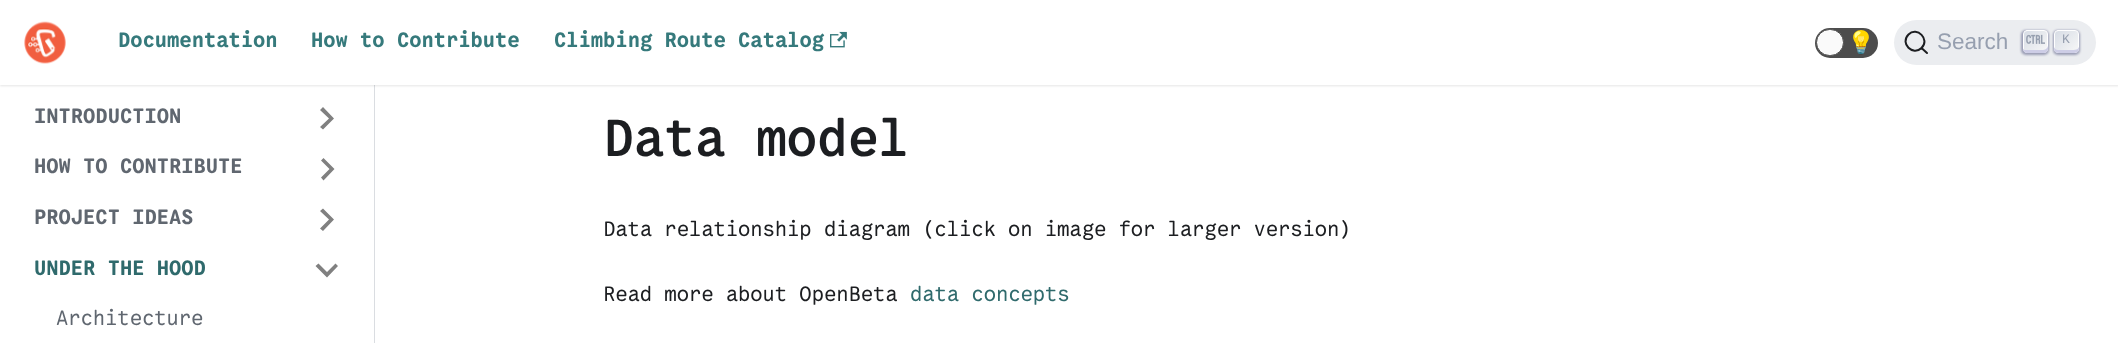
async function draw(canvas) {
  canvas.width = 2118
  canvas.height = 343
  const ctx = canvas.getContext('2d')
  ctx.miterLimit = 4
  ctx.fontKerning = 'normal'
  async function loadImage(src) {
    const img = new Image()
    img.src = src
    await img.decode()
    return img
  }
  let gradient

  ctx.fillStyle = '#fff'
  ctx.fillRect(0, 0, 2118, 343)
  ctx.fillStyle = '#dadde1'
  ctx.fillRect(374, 85, 1, 258)
  ctx.fillStyle = '#0000001a'
  ctx.filter = 'blur(1px)'
  ctx.beginPath()
  ctx.rect(0, 1, 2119, 85)
  ctx.fill()
  ctx.filter = 'none'
  ctx.fillStyle = '#fff'
  ctx.fillRect(0, 0, 2118, 85)
  ctx.drawImage(await loadImage('image0.png'), 24, 21, 42, 43)
  ctx.font = 'bold 22.5px "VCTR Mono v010"'
  ctx.fillStyle = '#367a7c'
  ctx.fillText('Documentation', 118, 47)
  ctx.fillText('How to Contribute', 311, 47)
  ctx.fillText('Climbing Route Catalog', 554, 47)
  ctx.drawImage(await loadImage('image1.png'), 830, 31, 17, 17)
  ctx.fillStyle = '#4d4d4d'
  ctx.beginPath()
  ctx.roundRect(1815, 28, 63, 30, 15)
  ctx.fill()
  ctx.fillStyle = '#fafafa'
  ctx.beginPath()
  ctx.roundRect(1816.5, 29.5, 27, 26, 13)
  ctx.fill()
  ctx.strokeStyle = '#4d4d4d'
  ctx.stroke()
  ctx.font = '22.5px Noto Color Emoji'
  ctx.fillStyle = '#1c1e21'
  ctx.fillText('💡', 1847, 50)
  ctx.fillStyle = '#ebedf0'
  ctx.beginPath()
  ctx.roundRect(1894, 20, 202, 45, 22.5)
  ctx.fill()
  ctx.beginPath()
  ctx.moveTo(1921.5, 48)
  ctx.lineTo(1927, 53)
  ctx.lineTo(1921.5, 48)
  ctx.bezierCurveTo(1913, 56.5, 1899.5, 43.5, 1908.5, 34.5)
  ctx.bezierCurveTo(1917, 26, 1930.5, 39.5, 1921.5, 48)
  ctx.closePath()
  ctx.strokeStyle = '#1c1e21'
  ctx.lineWidth = 2
  ctx.lineCap = 'round'
  ctx.lineJoin = 'round'
  ctx.stroke()
  ctx.font = '22.5px Liberation Sans'
  ctx.fillStyle = '#969faf'
  ctx.fillText('Search', 1937, 49)
  ctx.fillStyle = '#1e235a66'
  ctx.filter = 'blur(1px)'
  ctx.beginPath()
  ctx.roundRect(2021, 30, 28, 25, 5)
  ctx.fill()
  ctx.filter = 'none'
  gradient = ctx.createLinearGradient(2023, 29, 2047, 53)
  gradient.addColorStop(0, '#d5dbe4')
  gradient.addColorStop(1, '#f8f8f8')
  ctx.fillStyle = gradient
  ctx.beginPath()
  ctx.roundRect(2023.5, 30.5, 24, 22, 3.5)
  ctx.fill()
  ctx.strokeStyle = '#fff'
  ctx.lineWidth = 1
  ctx.lineJoin = 'miter'
  ctx.stroke()
  ctx.fillStyle = '#cdcde6'
  ctx.beginPath()
  ctx.moveTo(2023, 48.5)
  ctx.lineTo(2023, 49)
  ctx.bezierCurveTo(2023, 51, 2025, 53, 2027, 53)
  ctx.lineTo(2044, 53)
  ctx.bezierCurveTo(2046, 53, 2048, 51, 2048, 49)
  ctx.lineTo(2048, 44.5)
  ctx.bezierCurveTo(2048, 48, 2046.5, 50, 2041, 50)
  ctx.lineTo(2026, 50)
  ctx.bezierCurveTo(2024.5, 50, 2023.5, 49.5, 2023, 48.5)
  ctx.closePath()
  ctx.fill()
  ctx.drawImage(await loadImage('image2.png'), 2026, 34, 19, 10)
  ctx.fillStyle = '#1e235a66'
  ctx.filter = 'blur(1px)'
  ctx.beginPath()
  ctx.roundRect(2053, 30, 27, 25, 5)
  ctx.fill()
  ctx.filter = 'none'
  gradient = ctx.createLinearGradient(2054, 29, 2078, 53)
  gradient.addColorStop(0, '#d5dbe4')
  gradient.addColorStop(1, '#f8f8f8')
  ctx.fillStyle = gradient
  ctx.beginPath()
  ctx.roundRect(2054.5, 30.5, 24, 22, 3.5)
  ctx.fill()
  ctx.stroke()
  ctx.fillStyle = '#cdcde6'
  ctx.beginPath()
  ctx.moveTo(2079, 46.5)
  ctx.bezierCurveTo(2078.5, 49, 2077, 50, 2072, 50)
  ctx.lineTo(2058, 50)
  ctx.bezierCurveTo(2055.5, 50, 2054.5, 48.5, 2054, 47)
  ctx.bezierCurveTo(2054, 52.5, 2055.5, 53, 2061, 53)
  ctx.lineTo(2072, 53)
  ctx.bezierCurveTo(2078, 53, 2079, 52.5, 2079, 46.5)
  ctx.closePath()
  ctx.fill()
  ctx.font = '13px Liberation Mono'
  ctx.fillStyle = '#969faf'
  ctx.fillText('K', 2062, 43)
  ctx.font = 'bold 22.5px "VCTR Mono v010"'
  ctx.fillStyle = '#606770'
  ctx.fillText('INTRODUCTION', 34, 123)
  ctx.fillStyle = '#808080'
  ctx.beginPath()
  ctx.moveTo(320, 110)
  ctx.lineTo(329, 118.5)
  ctx.lineTo(320, 127)
  ctx.lineTo(323, 129.5)
  ctx.lineTo(334, 118.5)
  ctx.lineTo(323, 107)
  ctx.closePath()
  ctx.fill()
  ctx.fillStyle = '#606770'
  ctx.fillText('HOW TO CONTRIBUTE', 34, 173)
  ctx.fillStyle = '#808080'
  ctx.beginPath()
  ctx.moveTo(321, 160.5)
  ctx.lineTo(329.5, 169)
  ctx.lineTo(321, 177.5)
  ctx.lineTo(323.5, 180.5)
  ctx.lineTo(334.5, 169)
  ctx.lineTo(323.5, 158)
  ctx.closePath()
  ctx.fill()
  ctx.fillStyle = '#606770'
  ctx.fillText('PROJECT IDEAS', 34, 224)
  ctx.fillStyle = '#808080'
  ctx.beginPath()
  ctx.moveTo(320, 211)
  ctx.lineTo(329, 219.5)
  ctx.lineTo(320, 228.5)
  ctx.lineTo(323, 231)
  ctx.lineTo(334, 219.5)
  ctx.lineTo(323, 208.5)
  ctx.closePath()
  ctx.fill()
  ctx.fillStyle = '#2f6a6c'
  ctx.fillText('UNDER THE HOOD', 34, 275)
  ctx.fillStyle = '#808080'
  ctx.beginPath()
  ctx.moveTo(335.5, 263.5)
  ctx.lineTo(327, 272)
  ctx.lineTo(318.5, 263.5)
  ctx.lineTo(315.5, 266)
  ctx.lineTo(327, 277.5)
  ctx.lineTo(338, 266)
  ctx.closePath()
  ctx.fill()
  ctx.font = '22.5px "VCTR Mono v010"'
  ctx.fillStyle = '#606770'
  ctx.fillText('Architecture', 56, 325)
  ctx.letterSpacing = '-0.1px'
  ctx.font = '500 56.25px "VCTR Mono v010"'
  ctx.fillStyle = '#1c1e21'
  ctx.fillText('Data model', 603, 156)
  ctx.letterSpacing = '0px'
  ctx.font = '22.5px "VCTR Mono v010"'
  ctx.fillText('Data relationship diagram (click on image for larger version)', 603, 236)
  ctx.fillText('Read more about OpenBeta', 603, 301)
  ctx.fillStyle = '#2f6a6c'
  ctx.fillText('data concepts', 910, 301)
}

draw(document.querySelector('canvas'))
